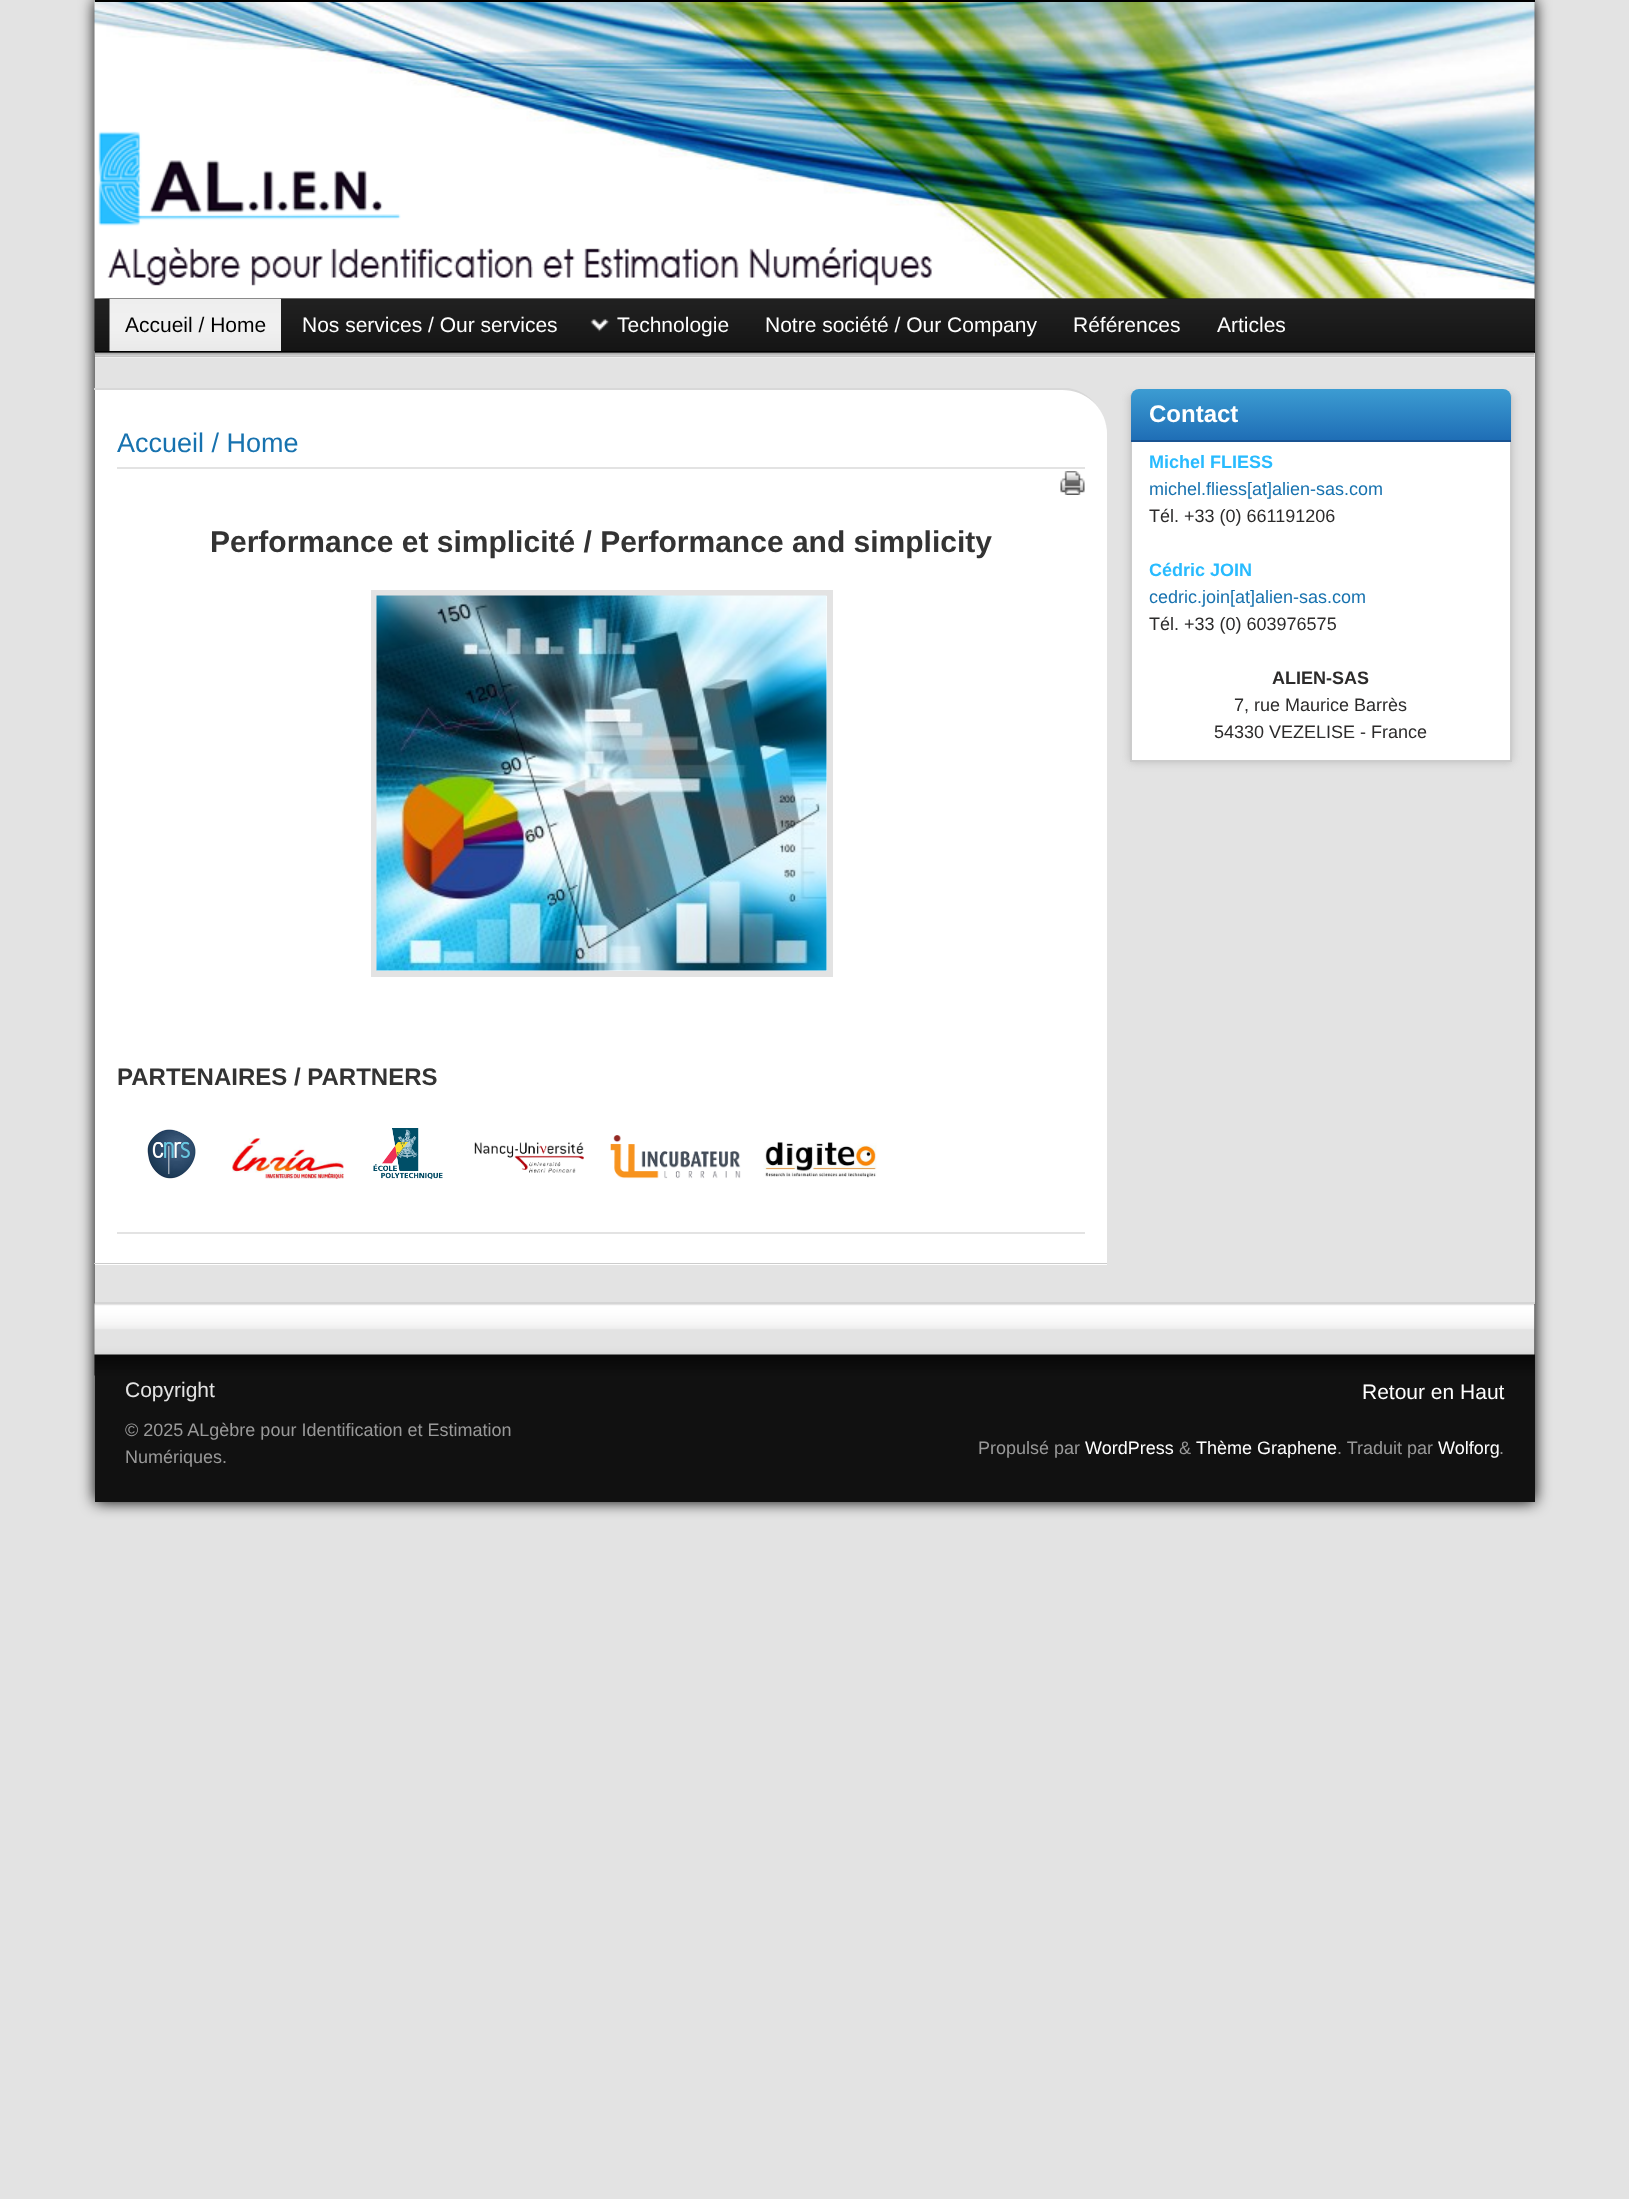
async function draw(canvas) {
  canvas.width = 1629
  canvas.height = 2199
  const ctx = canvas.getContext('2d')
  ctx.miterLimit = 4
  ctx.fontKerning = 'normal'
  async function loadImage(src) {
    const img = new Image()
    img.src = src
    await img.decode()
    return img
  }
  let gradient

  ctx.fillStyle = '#e3e3e3'
  ctx.fillRect(0, 0, 1629, 2199)
  ctx.fillStyle = '#000'
  ctx.filter = 'blur(7.5px)'
  ctx.beginPath()
  ctx.rect(95, 0, 1440, 1502)
  ctx.fill()
  ctx.filter = 'none'
  ctx.drawImage(await loadImage('image0.png'), 94, 1, 1441, 298)
  ctx.fillRect(95, 0, 1440, 2)
  ctx.fillStyle = '#101010'
  ctx.fillRect(1534, 299, 1, 52)
  ctx.drawImage(await loadImage('image1.png'), 94, 298, 1441, 53)
  ctx.fillStyle = '#eee'
  ctx.fillRect(280, 299, 1, 52)
  ctx.drawImage(await loadImage('image2.png'), 109, 298, 172, 53)
  ctx.font = '21px Liberation Sans'
  ctx.fillStyle = '#000'
  ctx.fillText('Accueil / Home', 125, 332)
  ctx.fillStyle = '#fff'
  ctx.fillText('Nos services / Our services', 302, 332)
  ctx.drawImage(await loadImage('image3.png'), 590, 319, 20, 13)
  ctx.fillText('Technologie', 617, 332)
  ctx.fillText('Notre société / Our Company', 765, 332)
  ctx.fillText('Références', 1073, 332)
  ctx.fillText('Articles', 1217, 332)
  ctx.fillStyle = '#000'
  ctx.fillRect(95, 351, 1440, 2)
  ctx.fillStyle = '#eee'
  ctx.fillRect(95, 353, 1440, 5)
  ctx.drawImage(await loadImage('image4.png'), 94, 352, 1441, 5)
  ctx.fillStyle = '#e3e3e3'
  ctx.fillRect(95, 358, 1440, 944)
  ctx.fillStyle = '#fff'
  ctx.beginPath()
  ctx.roundRect(95, 389, 1012, 876, [0, 45, 0, 0])
  ctx.fill()
  ctx.fillStyle = '#d8d8d8'
  ctx.beginPath()
  ctx.moveTo(94, 388)
  ctx.lineTo(94, 390)
  ctx.lineTo(1062, 390)
  ctx.bezierCurveTo(1086, 390, 1105, 407, 1107, 431)
  ctx.bezierCurveTo(1105, 409, 1089, 392, 1069, 388)
  ctx.closePath()
  ctx.fill()
  ctx.fillStyle = '#ccc'
  ctx.fillRect(94, 1263, 1013, 1)
  ctx.fillStyle = '#e3e3e3'
  ctx.fillRect(117, 467, 968, 2)
  ctx.font = '27px Liberation Sans'
  ctx.fillStyle = '#1772af'
  ctx.fillText('Accueil / Home', 117, 452)
  ctx.drawImage(await loadImage('image5.png'), 1060, 471, 25, 24)
  ctx.font = 'bold 30px Liberation Sans'
  ctx.fillStyle = '#333'
  ctx.fillText('Performance et simplicité / Performance and simplicity', 210, 552)
  ctx.strokeStyle = '#e3e3e3'
  ctx.lineWidth = 6
  ctx.strokeRect(374, 593, 456, 381)
  ctx.drawImage(await loadImage('image6.png'), 376, 595, 451, 376)
  ctx.font = 'bold 24px Liberation Sans'
  ctx.fillText('PARTENAIRES / PARTNERS', 117, 1085)
  ctx.drawImage(await loadImage('image7.png'), 147, 1129, 49, 50)
  ctx.drawImage(await loadImage('image8.png'), 232, 1138, 112, 41)
  ctx.drawImage(await loadImage('image9.png'), 373, 1128, 70, 51)
  ctx.drawImage(await loadImage('image10.png'), 474, 1142, 110, 31)
  ctx.drawImage(await loadImage('image11.png'), 610, 1135, 131, 44)
  ctx.drawImage(await loadImage('image12.png'), 763, 1142, 114, 36)
  ctx.fillStyle = '#e3e3e3'
  ctx.fillRect(117, 1232, 968, 2)
  ctx.fillStyle = '#bbb'
  ctx.filter = 'blur(4px)'
  ctx.beginPath()
  ctx.rect(1130, 395, 382, 367)
  ctx.fill()
  ctx.filter = 'none'
  ctx.fillStyle = '#fff'
  ctx.fillRect(1132, 442, 378, 318)
  ctx.strokeStyle = '#ccc'
  ctx.lineWidth = 2
  ctx.strokeRect(1131, 396, 380, 365)
  gradient = ctx.createLinearGradient(1321, 389, 1321, 440)
  gradient.addColorStop(0, '#3c9cd2')
  gradient.addColorStop(1, '#1f6eb6')
  ctx.fillStyle = gradient
  ctx.beginPath()
  ctx.roundRect(1131, 389, 380, 51, [8, 8, 0, 0])
  ctx.fill()
  ctx.fillStyle = '#195392'
  ctx.fillRect(1131, 440, 380, 2)
  ctx.fillStyle = '#fff'
  ctx.fillText('Contact', 1149, 422)
  ctx.font = 'bold 18px Liberation Sans'
  ctx.fillStyle = '#28bbff'
  ctx.fillText('Michel FLIESS', 1149, 468)
  ctx.font = '18px Liberation Sans'
  ctx.fillStyle = '#1772af'
  ctx.fillText('michel.fliess[at]alien-sas.com', 1149, 495)
  ctx.fillStyle = '#2c2b2b'
  ctx.fillText('Tél. +33 (0) 661191206', 1149, 522)
  ctx.font = 'bold 18px Liberation Sans'
  ctx.fillStyle = '#28bbff'
  ctx.fillText('Cédric JOIN', 1149, 576)
  ctx.font = '18px Liberation Sans'
  ctx.fillStyle = '#1772af'
  ctx.fillText('cedric.join[at]alien-sas.com', 1149, 603)
  ctx.fillStyle = '#2c2b2b'
  ctx.fillText('Tél. +33 (0) 603976575', 1149, 630)
  ctx.font = 'bold 18px Liberation Sans'
  ctx.fillText('ALIEN-SAS', 1272, 684)
  ctx.font = '18px Liberation Sans'
  ctx.fillText('7, rue Maurice Barrès', 1234, 711)
  ctx.fillText('54330 VEZELISE - France', 1214, 738)
  ctx.fillStyle = '#111'
  ctx.fillRect(95, 1304, 1440, 198)
  ctx.drawImage(await loadImage('image13.png'), 94, 1303, 1441, 73)
  ctx.fillStyle = '#d5d5d5'
  ctx.fillRect(95, 1302, 1440, 2)
  ctx.font = '21px Liberation Sans'
  ctx.fillStyle = '#e3e3e3'
  ctx.fillText('Copyright', 125, 1397)
  ctx.font = '18px Liberation Sans'
  ctx.fillStyle = '#999'
  ctx.fillText('© 2025 ALgèbre pour Identification et Estimation', 125, 1436)
  ctx.fillText('Numériques.', 125, 1463)
  ctx.font = '21px Liberation Sans'
  ctx.fillStyle = '#fff'
  ctx.fillText('Retour en Haut', 1362, 1399)
  ctx.font = '18px Liberation Sans'
  ctx.fillStyle = '#999'
  ctx.fillText('Propulsé par', 978, 1454)
  ctx.fillStyle = '#fff'
  ctx.fillText('WordPress', 1085, 1454)
  ctx.fillStyle = '#999'
  ctx.fillText('&', 1179, 1454)
  ctx.fillStyle = '#fff'
  ctx.fillText('Thème Graphene', 1196, 1454)
  ctx.fillStyle = '#999'
  ctx.fillText('. Traduit par', 1337, 1454)
  ctx.fillStyle = '#fff'
  ctx.fillText('Wolforg', 1438, 1454)
  ctx.fillStyle = '#999'
  ctx.fillText('.', 1499, 1454)
}

draw(document.querySelector('canvas'))
